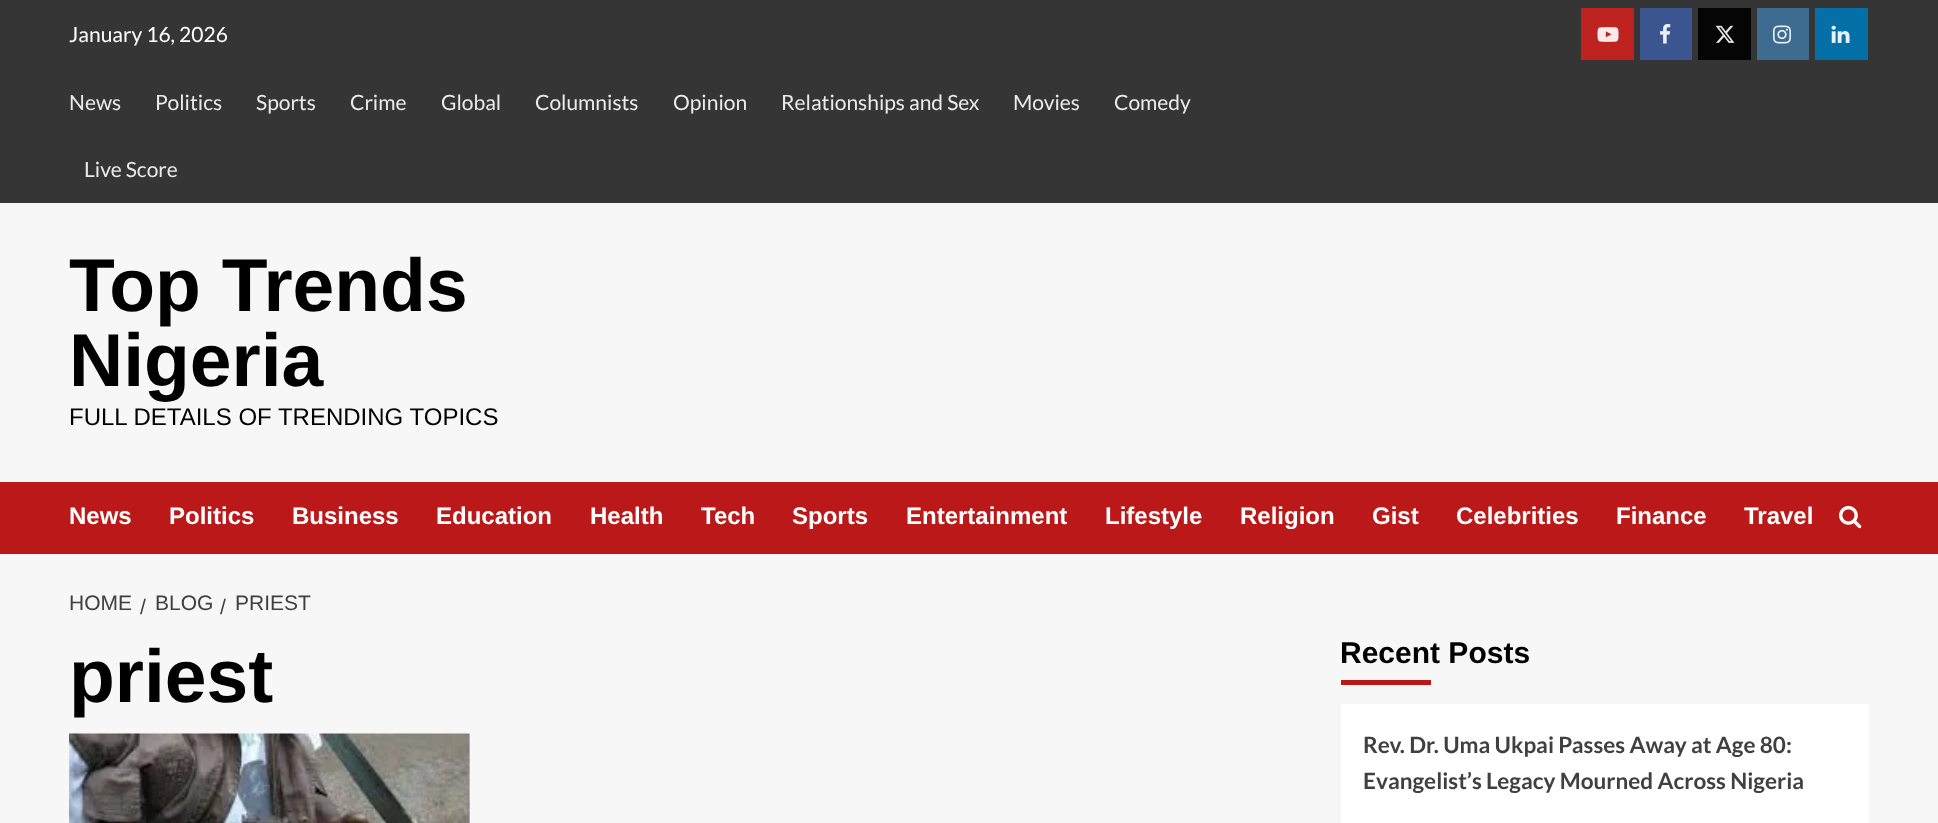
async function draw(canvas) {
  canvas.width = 1938
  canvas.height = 823
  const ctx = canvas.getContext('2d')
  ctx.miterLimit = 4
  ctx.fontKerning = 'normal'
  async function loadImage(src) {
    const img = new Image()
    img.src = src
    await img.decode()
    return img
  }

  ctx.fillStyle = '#f7f7f7'
  ctx.fillRect(0, 0, 1938, 823)
  ctx.fillStyle = '#353535'
  ctx.fillRect(0, 0, 1938, 203)
  ctx.font = '21px Lato'
  ctx.fillStyle = '#fff'
  ctx.fillText('January 16, 2026', 69, 42)
  ctx.fillStyle = '#ebebeb'
  ctx.fillText('News', 69, 110)
  ctx.fillText('Politics', 155, 110)
  ctx.fillText('Sports', 256, 110)
  ctx.fillText('Crime', 350, 110)
  ctx.fillText('Global', 441, 110)
  ctx.fillText('Columnists', 535, 110)
  ctx.fillText('Opinion', 673, 110)
  ctx.fillText('Relationships and Sex', 781, 110)
  ctx.fillText('Movies', 1013, 110)
  ctx.fillText('Comedy', 1114, 110)
  ctx.fillText('Live Score', 84, 177)
  ctx.fillStyle = '#be2221'
  ctx.fillRect(1581, 8, 53, 52)
  ctx.drawImage(await loadImage('image0.png'), 1597, 27, 22, 15)
  ctx.fillStyle = '#3a558f'
  ctx.fillRect(1640, 8, 52, 52)
  ctx.drawImage(await loadImage('image1.png'), 1660, 24, 11, 20)
  ctx.fillStyle = '#050505'
  ctx.fillRect(1698, 8, 53, 52)
  ctx.drawImage(await loadImage('image2.png'), 1715, 25, 20, 18)
  ctx.fillStyle = '#3e6c91'
  ctx.fillRect(1757, 8, 52, 52)
  ctx.drawImage(await loadImage('image3.png'), 1773, 25, 18, 19)
  ctx.fillStyle = '#0570a8'
  ctx.fillRect(1815, 8, 53, 52)
  ctx.drawImage(await loadImage('image4.png'), 1831, 25, 19, 18)
  ctx.font = 'bold 75px Liberation Sans'
  ctx.fillStyle = '#000'
  ctx.fillText('Top Trends', 69, 311)
  ctx.fillText('Nigeria', 69, 386)
  ctx.font = '24px Liberation Sans'
  ctx.fillText('FULL DETAILS OF TRENDING TOPICS', 69, 425)
  ctx.fillStyle = '#bb1919'
  ctx.fillRect(0, 482, 1938, 72)
  ctx.font = 'bold 24px Liberation Sans'
  ctx.fillStyle = '#fff'
  ctx.fillText('News', 69, 524)
  ctx.fillText('Politics', 169, 524)
  ctx.fillText('Business', 292, 524)
  ctx.fillText('Education', 436, 524)
  ctx.fillText('Health', 590, 524)
  ctx.fillText('Tech', 701, 524)
  ctx.fillText('Sports', 792, 524)
  ctx.fillText('Entertainment', 906, 524)
  ctx.fillText('Lifestyle', 1105, 524)
  ctx.fillText('Religion', 1240, 524)
  ctx.fillText('Gist', 1372, 524)
  ctx.fillText('Celebrities', 1456, 524)
  ctx.fillText('Finance', 1616, 524)
  ctx.fillText('Travel', 1744, 524)
  ctx.drawImage(await loadImage('image5.png'), 1839, 505, 23, 24)
  ctx.font = '21px Liberation Sans'
  ctx.fillStyle = '#404040'
  ctx.fillText('HOME', 69, 610)
  ctx.fillText('/', 140, 614)
  ctx.fillText('BLOG', 155, 610)
  ctx.fillText('/', 220, 614)
  ctx.fillText('PRIEST', 235, 610)
  ctx.font = 'bold 75px Liberation Sans'
  ctx.fillStyle = '#000'
  ctx.fillText('priest', 69, 702)
  ctx.fillStyle = '#d8d8d8'
  ctx.fillRect(469, 734, 1, 89)
  ctx.drawImage(await loadImage('image6.png'), 69, 733, 401, 90)
  ctx.font = 'bold 30px Liberation Sans'
  ctx.fillStyle = '#000'
  ctx.fillText('Recent Posts', 1340, 663)
  ctx.fillStyle = '#bb1919'
  ctx.fillRect(1341, 680, 90, 5)
  ctx.fillStyle = '#fff'
  ctx.fillRect(1341, 704, 528, 119)
  ctx.font = 'bold 22.5px Lato'
  ctx.fillStyle = '#404040'
  ctx.fillText('Rev. Dr. Uma Ukpai Passes Away at Age 80:', 1363, 753)
  ctx.fillText('Evangelist’s Legacy Mourned Across Nigeria', 1363, 789)
}

draw(document.querySelector('canvas'))
